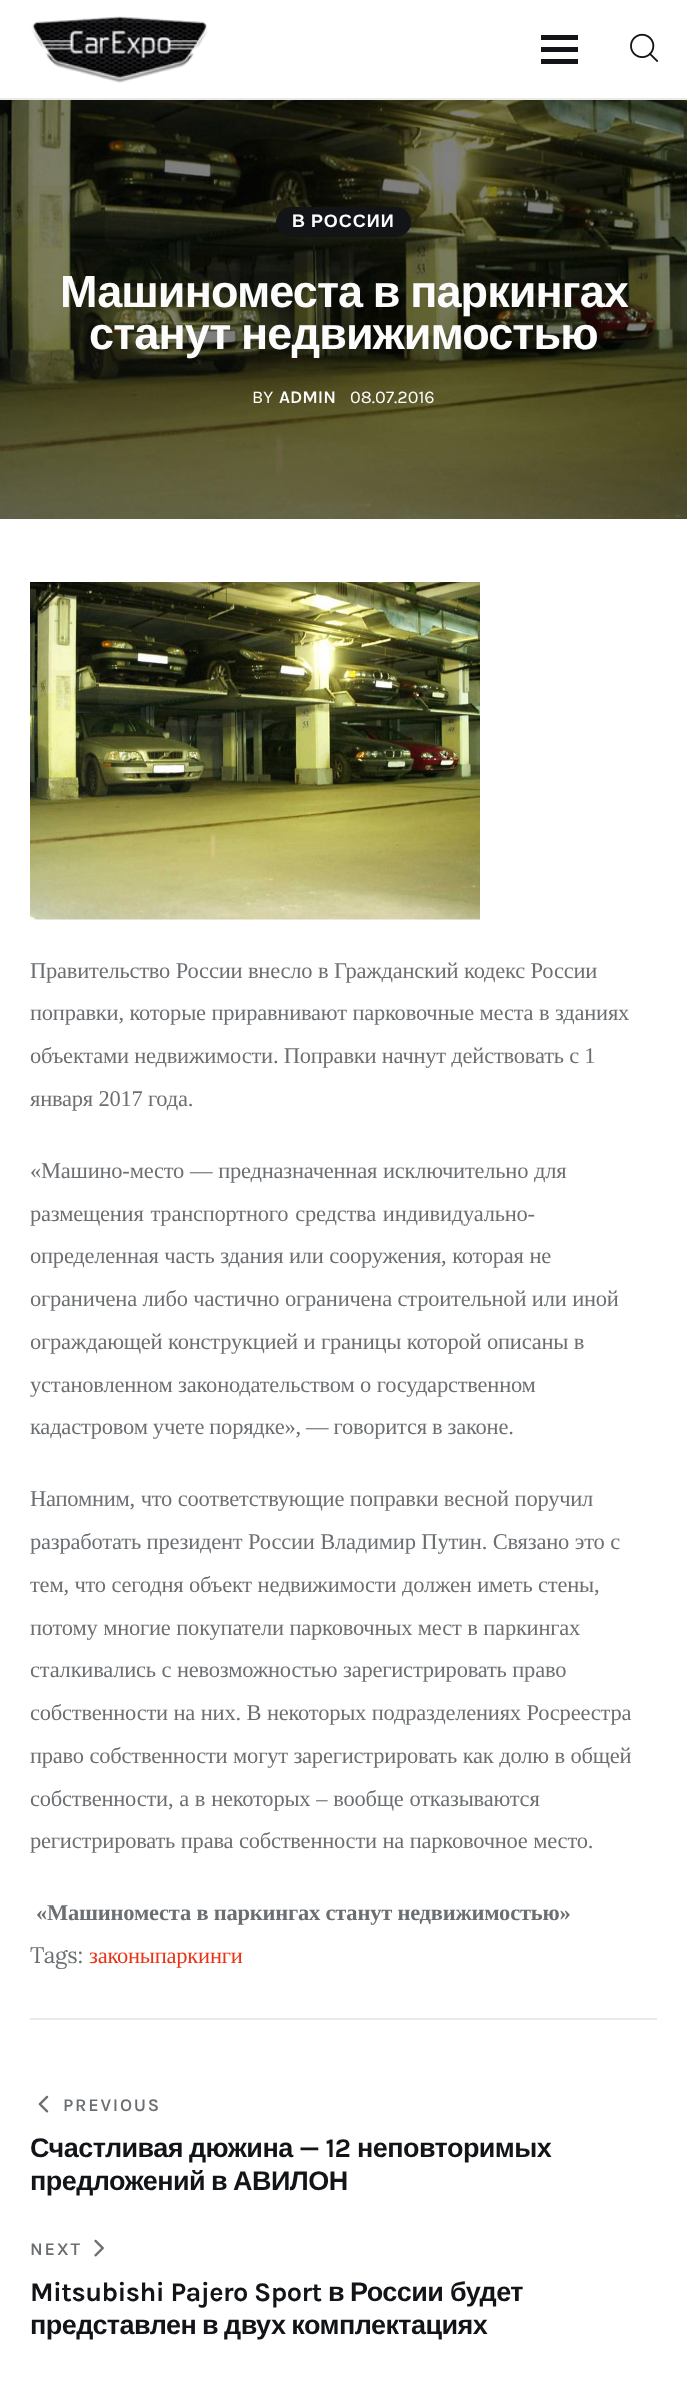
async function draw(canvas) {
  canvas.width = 687
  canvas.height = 2395
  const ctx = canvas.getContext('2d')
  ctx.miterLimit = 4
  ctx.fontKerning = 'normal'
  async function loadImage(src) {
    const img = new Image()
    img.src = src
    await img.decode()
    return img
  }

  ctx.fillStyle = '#fff'
  ctx.fillRect(0, 0, 687, 2395)
  ctx.fillStyle = '#eaeaea'
  ctx.fillRect(0, 98, 687, 2)
  ctx.drawImage(await loadImage('image0.png'), 31, 16, 177, 67)
  ctx.fillStyle = '#121418'
  ctx.beginPath()
  ctx.moveTo(541, 64)
  ctx.lineTo(578, 64)
  ctx.lineTo(578, 59)
  ctx.lineTo(541, 59)
  ctx.closePath()
  ctx.moveTo(541, 52)
  ctx.lineTo(578, 52)
  ctx.lineTo(578, 47)
  ctx.lineTo(541, 47)
  ctx.closePath()
  ctx.moveTo(541, 35)
  ctx.lineTo(541, 40)
  ctx.lineTo(578, 40)
  ctx.lineTo(578, 35)
  ctx.closePath()
  ctx.fill()
  ctx.drawImage(await loadImage('image1.png'), 630, 33, 29, 29)
  ctx.drawImage(await loadImage('image2.png'), 0, 100, 687, 419)
  ctx.beginPath()
  ctx.roundRect(276, 207, 135, 30, 15)
  ctx.fill()
  ctx.letterSpacing = '1px'
  ctx.wordSpacing = '-1px'
  ctx.font = 'bold 18px Liberation Sans'
  ctx.fillStyle = '#fcfcfc'
  ctx.fillText('В РОССИИ', 292, 227)
  ctx.letterSpacing = '-0.9px'
  ctx.font = 'bold 45px Liberation Sans'
  ctx.fillText('Машиноместа в паркингах', 60, 307)
  ctx.fillText('станут недвижимостью', 89, 349)
  ctx.letterSpacing = '0px'
  ctx.wordSpacing = '0px'
  ctx.font = '18px Karla'
  ctx.fillText('BY', 252, 403)
  ctx.font = '600 18px Karla'
  ctx.fillText('ADMIN', 279, 403)
  ctx.font = '18px Karla'
  ctx.fillText('08.07.2016', 350, 403)
  ctx.drawImage(await loadImage('image3.png'), 30, 582, 450, 338)
  ctx.letterSpacing = '-0.22px'
  ctx.wordSpacing = '0.25px'
  ctx.font = '22.5px Liberation Serif'
  ctx.fillStyle = '#6c6f72'
  ctx.fillText('Правительство России внесло в Гражданский кодекс России', 30, 978)
  ctx.fillText('поправки, которые приравнивают парковочные места в зданиях', 30, 1020)
  ctx.wordSpacing = '0px'
  ctx.fillText('объектами недвижимости. Поправки начнут действовать с 1', 30, 1063)
  ctx.fillText('января 2017 года.', 30, 1106)
  ctx.wordSpacing = '0.5px'
  ctx.fillText('«Машино-место — предназначенная исключительно для', 30, 1178)
  ctx.wordSpacing = '1.5px'
  ctx.fillText('размещения транспортного средства индивидуально-', 30, 1221)
  ctx.wordSpacing = '0.25px'
  ctx.fillText('определенная часть здания или сооружения, которая не', 30, 1263)
  ctx.fillText('ограничена либо частично ограничена строительной или иной', 30, 1306)
  ctx.fillText('ограждающей конструкцией и границы которой описаны в', 30, 1349)
  ctx.fillText('установленном законодательством о государственном', 30, 1392)
  ctx.wordSpacing = '-0.25px'
  ctx.fillText('кадастровом учете порядке», — говорится в законе.', 30, 1434)
  ctx.wordSpacing = '0.25px'
  ctx.fillText('Напомним, что соответствующие поправки весной поручил', 30, 1506)
  ctx.fillText('разработать президент России Владимир Путин. Связано это с', 30, 1549)
  ctx.fillText('тем, что сегодня объект недвижимости должен иметь стены,', 30, 1592)
  ctx.fillText('потому многие покупатели парковочных мест в паркингах', 30, 1635)
  ctx.fillText('сталкивались с невозможностью зарегистрировать право', 30, 1677)
  ctx.fillText('собственности на них. В некоторых подразделениях Росреестра', 30, 1720)
  ctx.fillText('право собственности могут зарегистрировать как долю в общей', 30, 1763)
  ctx.wordSpacing = '0.5px'
  ctx.fillText('собственности, а в некоторых – вообще отказываются', 30, 1806)
  ctx.wordSpacing = '0.25px'
  ctx.fillText('регистрировать права собственности на парковочное место.', 30, 1848)
  ctx.wordSpacing = '0px'
  ctx.font = 'bold 22.5px Liberation Serif'
  ctx.fillText('«Машиноместа в паркингах станут недвижимостью»', 36, 1920)
  ctx.font = '22.5px Lora'
  ctx.fillText('Tags:', 30, 1963)
  ctx.font = '22.5px Liberation Serif'
  ctx.fillStyle = '#e93314'
  ctx.fillText('законыпаркинги', 89, 1963)
  ctx.fillStyle = '#eaeaea'
  ctx.fillRect(30, 2018, 627, 2)
  ctx.drawImage(await loadImage('image4.png'), 38, 2095, 11, 18)
  ctx.letterSpacing = '1.75px'
  ctx.font = '600 18px Karla'
  ctx.fillStyle = '#6c6f72'
  ctx.fillText('PREVIOUS', 63, 2111)
  ctx.letterSpacing = '-0.55px'
  ctx.font = 'bold 27px Liberation Sans'
  ctx.fillStyle = '#121418'
  ctx.fillText('Счастливая', 30, 2157)
  ctx.fillText('дюжина', 189, 2157)
  ctx.font = 'bold 27px Karla'
  ctx.fillText('— 12', 299, 2157)
  ctx.font = 'bold 27px Liberation Sans'
  ctx.fillText('неповторимых', 357, 2157)
  ctx.wordSpacing = '-1px'
  ctx.fillText('предложений в АВИЛОН', 30, 2190)
  ctx.letterSpacing = '1.75px'
  ctx.wordSpacing = '0px'
  ctx.font = '600 18px Karla'
  ctx.fillStyle = '#6c6f72'
  ctx.fillText('NEXT', 30, 2255)
  ctx.drawImage(await loadImage('image5.png'), 94, 2239, 10, 18)
  ctx.letterSpacing = '-0.55px'
  ctx.font = 'bold 27px Karla'
  ctx.fillStyle = '#121418'
  ctx.fillText('Mitsubishi Pajero Sport', 30, 2301)
  ctx.font = 'bold 27px Liberation Sans'
  ctx.fillText('в', 328, 2301)
  ctx.fillText('России', 350, 2301)
  ctx.fillText('будет', 450, 2301)
  ctx.wordSpacing = '-1px'
  ctx.fillText('представлен в двух комплектациях', 30, 2334)
}

draw(document.querySelector('canvas'))
